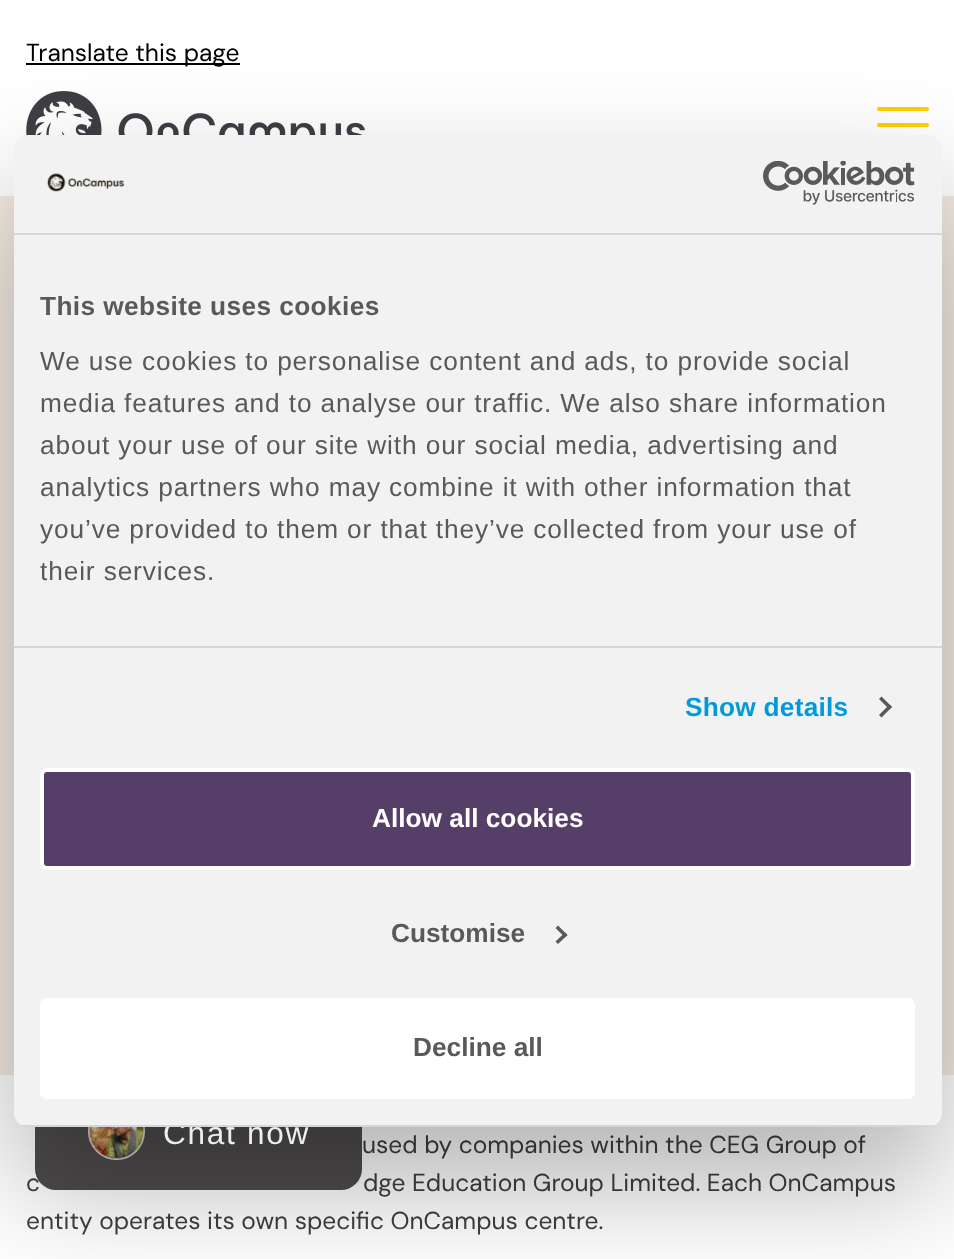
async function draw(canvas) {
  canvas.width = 954
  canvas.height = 1259
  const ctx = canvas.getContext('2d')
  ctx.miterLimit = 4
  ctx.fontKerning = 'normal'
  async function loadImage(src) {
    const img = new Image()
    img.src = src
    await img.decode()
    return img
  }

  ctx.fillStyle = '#fff'
  ctx.fillRect(0, 0, 954, 1259)
  ctx.fillStyle = '#000'
  ctx.fillRect(26, 63, 214, 2)
  ctx.font = '24.5px DM Sans'
  ctx.fillText('Translate this page', 26, 61)
  ctx.drawImage(await loadImage('image0.png'), 26, 91, 339, 45)
  ctx.fillStyle = '#ffcf00'
  ctx.beginPath()
  ctx.roundRect(877, 107, 52, 4, 2)
  ctx.fill()
  ctx.beginPath()
  ctx.roundRect(877, 123, 52, 4, 2)
  ctx.fill()
  ctx.fillStyle = '#f3ece4'
  ctx.fillRect(0, 196, 954, 879)
  ctx.fillStyle = '#3e3f44'
  ctx.fillText('used by companies within the CEG Group of', 362, 1153)
  ctx.fillText('c', 26, 1191)
  ctx.fillText('dge Education Group Limited. Each OnCampus', 363, 1191)
  ctx.fillText('entity operates its own specific OnCampus centre.', 26, 1229)
  ctx.fillStyle = '#4f4c4c'
  ctx.beginPath()
  ctx.roundRect(35, 1073, 327, 117, 21)
  ctx.fill()
  ctx.beginPath()
  ctx.arc(116.5, 1131.5, 27.5, 0, 2 * Math.PI)
  ctx.strokeStyle = '#dfdfdf'
  ctx.lineWidth = 2
  ctx.stroke()
  ctx.drawImage(await loadImage('image3.png'), 89, 1127, 55, 32)
  ctx.fillStyle = '#0000004d'
  ctx.filter = 'blur(59.5px)'
  ctx.beginPath()
  ctx.roundRect(14, 191, 928, 992, 14)
  ctx.fill()
  ctx.filter = 'none'
  ctx.letterSpacing = '1.75px'
  ctx.font = '31.5px Liberation Sans'
  ctx.fillStyle = '#ededed'
  ctx.fillText('Chat now', 163, 1144)
  ctx.fillStyle = '#f2f2f2'
  ctx.beginPath()
  ctx.roundRect(14, 135, 928, 992, 14)
  ctx.fill()
  ctx.fillStyle = '#d6d6d6'
  ctx.fillRect(14, 233, 928, 2)
  ctx.drawImage(await loadImage('image1.png'), 47, 173, 78, 19)
  ctx.drawImage(await loadImage('image2.png'), 763, 161, 152, 44)
  ctx.fillRect(14, 646, 928, 2)
  ctx.letterSpacing = '0.4px'
  ctx.font = 'bold 26.25px Liberation Sans'
  ctx.fillStyle = '#595959'
  ctx.fillText('This website uses cookies', 40, 315)
  ctx.letterSpacing = '0.88px'
  ctx.font = '26.25px Liberation Sans'
  ctx.fillText('We use cookies to personalise content and ads, to provide social', 40, 370)
  ctx.fillText('media features and to analyse our traffic. We also share information', 40, 412)
  ctx.fillText('about your use of our site with our social media, advertising and', 40, 454)
  ctx.fillText('analytics partners who may combine it with other information that', 40, 496)
  ctx.fillText('you’ve provided to them or that they’ve collected from your use of', 40, 538)
  ctx.fillText('their services.', 40, 580)
  ctx.letterSpacing = '0.25px'
  ctx.font = 'bold 26.25px Liberation Sans'
  ctx.fillStyle = '#0099dc'
  ctx.fillText('Show details', 685, 716)
  ctx.fillStyle = '#595959'
  ctx.beginPath()
  ctx.moveTo(881.5, 696.5)
  ctx.lineTo(892, 707)
  ctx.lineTo(889.5, 709.5)
  ctx.lineTo(879, 699)
  ctx.closePath()
  ctx.fill()
  ctx.beginPath()
  ctx.moveTo(889.5, 704.5)
  ctx.lineTo(892, 707)
  ctx.lineTo(881.5, 717.5)
  ctx.lineTo(879, 715)
  ctx.closePath()
  ctx.fill()
  ctx.save()
  ctx.beginPath()
  ctx.roundRect(14, 135, 928, 992, 14)
  ctx.clip()
  ctx.fillStyle = '#d6d6d6'
  ctx.fillRect(14, 1125, 928, 2)
  ctx.restore()
  ctx.fillStyle = '#553f68'
  ctx.beginPath()
  ctx.roundRect(42, 770, 871, 98, 5)
  ctx.fill()
  ctx.strokeStyle = '#fff'
  ctx.lineWidth = 4
  ctx.stroke()
  ctx.letterSpacing = '0px'
  ctx.fillStyle = '#fff'
  ctx.fillText('Allow all cookies', 372, 827)
  ctx.fillStyle = '#595959'
  ctx.fillText('Customise', 391, 942)
  ctx.beginPath()
  ctx.moveTo(558, 925.5)
  ctx.lineTo(567.5, 935)
  ctx.lineTo(565, 937.5)
  ctx.lineTo(555.5, 928)
  ctx.closePath()
  ctx.fill()
  ctx.beginPath()
  ctx.moveTo(565, 932.5)
  ctx.lineTo(567.5, 935)
  ctx.lineTo(558, 944)
  ctx.lineTo(555.5, 941.5)
  ctx.closePath()
  ctx.fill()
  ctx.fillStyle = '#fff'
  ctx.beginPath()
  ctx.roundRect(42, 1000, 871, 97, 5)
  ctx.fill()
  ctx.stroke()
  ctx.fillStyle = '#595959'
  ctx.fillText('Decline all', 413, 1056)
}

draw(document.querySelector('canvas'))
